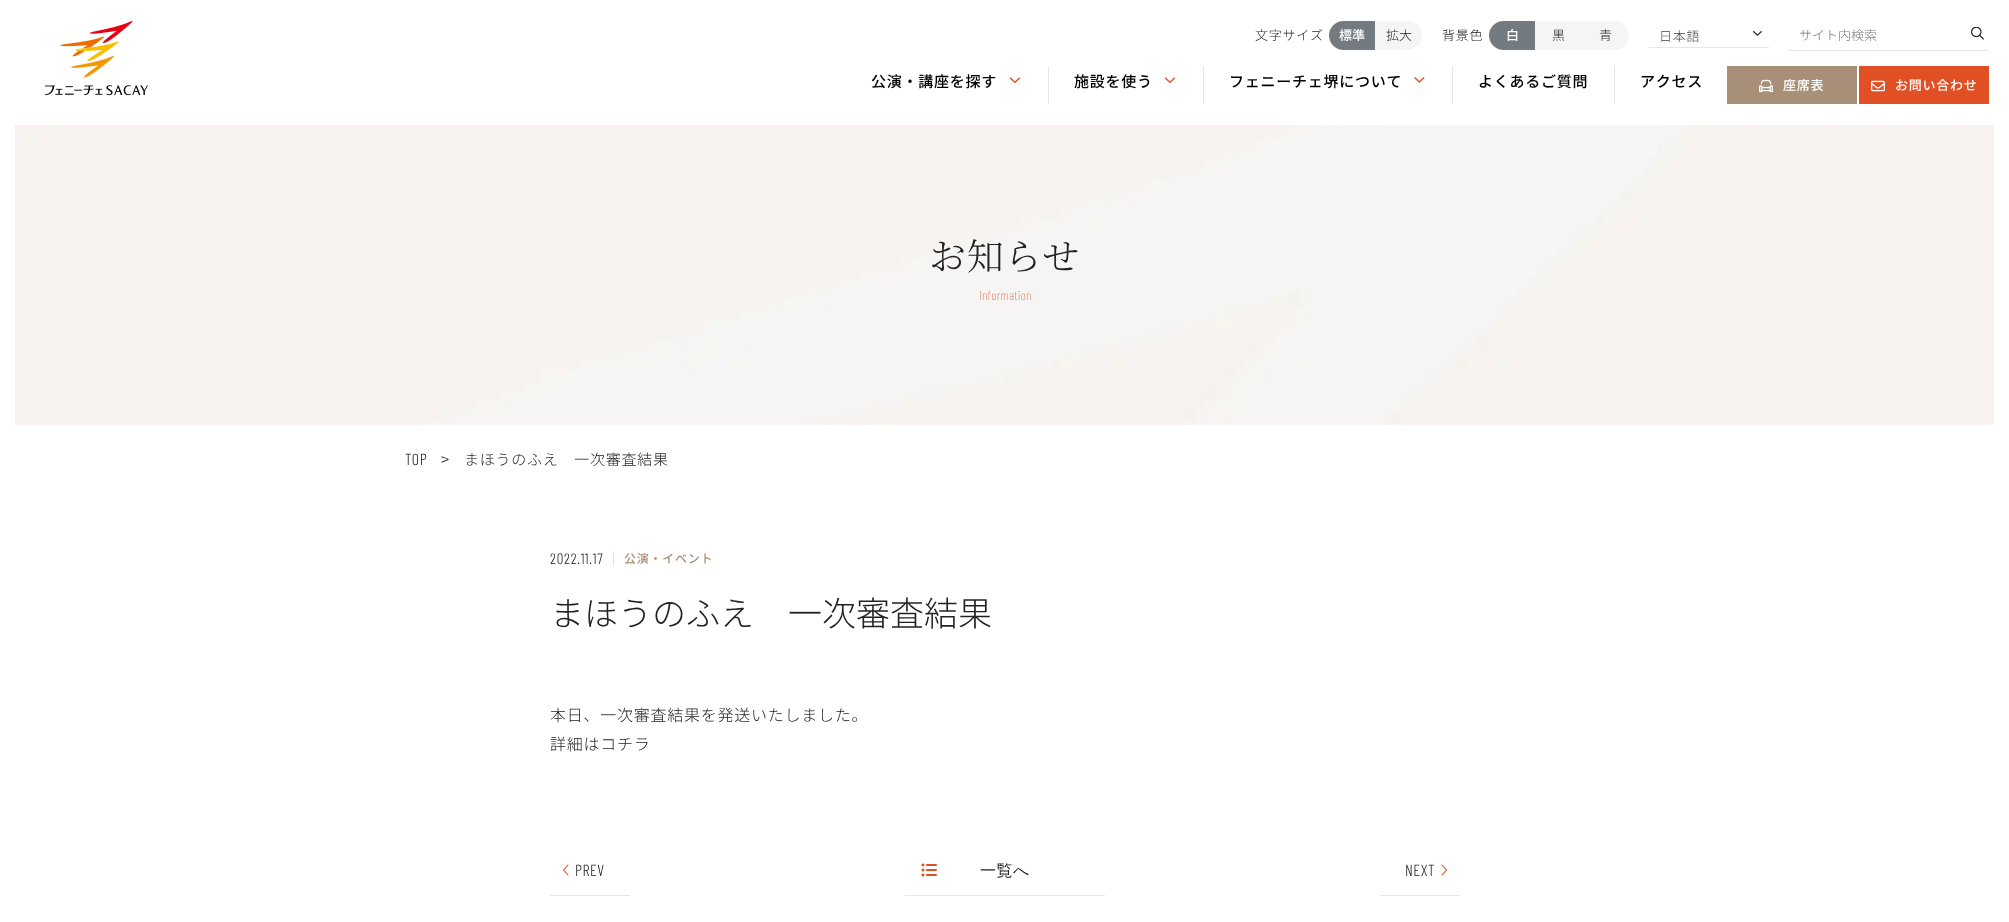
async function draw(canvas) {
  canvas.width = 2009
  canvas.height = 922
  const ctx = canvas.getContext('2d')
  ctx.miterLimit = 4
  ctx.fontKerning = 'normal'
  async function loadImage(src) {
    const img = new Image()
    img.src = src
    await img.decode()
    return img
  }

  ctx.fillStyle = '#fff'
  ctx.fillRect(0, 0, 2009, 922)
  ctx.drawImage(await loadImage('image0.png'), 45, 20, 103, 76)
  ctx.letterSpacing = '0.75px'
  ctx.font = '300 13px Noto Sans JP'
  ctx.fillStyle = '#222'
  ctx.fillText('文字サイズ', 1255, 40)
  ctx.fillStyle = '#747b80'
  ctx.beginPath()
  ctx.roundRect(1329, 21, 46, 29, [14.5, 0, 0, 14.5])
  ctx.fill()
  ctx.letterSpacing = '0px'
  ctx.font = '500 13px Noto Sans JP'
  ctx.fillStyle = '#fff'
  ctx.fillText('標準', 1339, 40)
  ctx.fillStyle = '#f5f5f5'
  ctx.beginPath()
  ctx.roundRect(1375, 21, 47, 29, [0, 14.5, 14.5, 0])
  ctx.fill()
  ctx.font = '300 13px Noto Sans JP'
  ctx.fillStyle = '#222'
  ctx.fillText('拡大', 1386, 40)
  ctx.letterSpacing = '0.75px'
  ctx.fillText('背景色', 1442, 40)
  ctx.fillStyle = '#747b80'
  ctx.beginPath()
  ctx.roundRect(1489, 21, 46, 29, [14.5, 0, 0, 14.5])
  ctx.fill()
  ctx.letterSpacing = '0px'
  ctx.font = '500 13px Noto Sans JP'
  ctx.fillStyle = '#fff'
  ctx.fillText('白', 1506, 40)
  ctx.fillStyle = '#f5f5f5'
  ctx.fillRect(1535, 21, 47, 29)
  ctx.font = '300 13px Noto Sans JP'
  ctx.fillStyle = '#222'
  ctx.fillText('黒', 1552, 40)
  ctx.fillStyle = '#f5f5f5'
  ctx.beginPath()
  ctx.roundRect(1582, 21, 47, 29, [0, 14.5, 14.5, 0])
  ctx.fill()
  ctx.fillStyle = '#222'
  ctx.fillText('青', 1599, 40)
  ctx.fillStyle = '#e6e6e6'
  ctx.fillRect(1649, 47, 120, 1)
  ctx.letterSpacing = '0.75px'
  ctx.fillStyle = '#444'
  ctx.fillText('日本語', 1659, 41)
  ctx.drawImage(await loadImage('image1.png'), 1753, 31, 9, 5)
  ctx.fillStyle = '#e6e6e6'
  ctx.fillRect(1789, 50, 200, 1)
  ctx.letterSpacing = '0px'
  ctx.fillStyle = '#757575'
  ctx.fillText('サイト内検索', 1799, 40)
  ctx.drawImage(await loadImage('image2.png'), 1971, 27, 13, 13)
  ctx.letterSpacing = '0.75px'
  ctx.font = '500 15px Noto Sans JP'
  ctx.fillStyle = '#000'
  ctx.fillText('公演・講座を探す', 871, 87)
  ctx.drawImage(await loadImage('image3.png'), 1009, 77, 11, 6)
  ctx.fillStyle = '#e6e6e6'
  ctx.fillRect(1048, 66, 1, 38)
  ctx.fillStyle = '#000'
  ctx.fillText('施設を使う', 1074, 87)
  ctx.drawImage(await loadImage('image4.png'), 1164, 77, 11, 6)
  ctx.fillStyle = '#e6e6e6'
  ctx.fillRect(1203, 66, 1, 38)
  ctx.fillStyle = '#000'
  ctx.fillText('フェニーチェ堺について', 1229, 87)
  ctx.drawImage(await loadImage('image5.png'), 1414, 77, 11, 6)
  ctx.fillStyle = '#e6e6e6'
  ctx.fillRect(1452, 66, 1, 38)
  ctx.fillStyle = '#000'
  ctx.fillText('よくあるご質問', 1478, 87)
  ctx.fillStyle = '#e6e6e6'
  ctx.fillRect(1614, 66, 1, 38)
  ctx.fillStyle = '#000'
  ctx.fillText('アクセス', 1640, 87)
  ctx.fillStyle = '#a89078'
  ctx.fillRect(1727, 66, 130, 38)
  ctx.drawImage(await loadImage('image6.png'), 1759, 79, 14, 14)
  ctx.font = '500 13px Noto Sans JP'
  ctx.fillStyle = '#fff'
  ctx.fillText('座席表', 1783, 90)
  ctx.fillStyle = '#e05024'
  ctx.fillRect(1859, 66, 130, 38)
  ctx.drawImage(await loadImage('image7.png'), 1871, 80, 14, 12)
  ctx.fillStyle = '#fff'
  ctx.fillText('お問い合わせ', 1895, 90)
  ctx.drawImage(await loadImage('image8.png'), 15, 125, 1979, 300)
  ctx.font = '300 37px Noto Serif JP'
  ctx.fillStyle = '#222'
  ctx.fillText('お知らせ', 929, 270)
  ctx.letterSpacing = '0.25px'
  ctx.font = '100 13px Barlow Condensed'
  ctx.fillStyle = '#e05024'
  ctx.fillText('Information', 979, 300)
  ctx.letterSpacing = '0.75px'
  ctx.font = '300 16px Barlow Condensed'
  ctx.fillStyle = '#222'
  ctx.fillText('TOP', 405, 465)
  ctx.font = '300 15px Noto Sans JP'
  ctx.fillText('>', 441, 465)
  ctx.fillText('まほうのふえ　一次審査結果', 464, 465)
  ctx.fillStyle = '#e6e3e1'
  ctx.fillRect(613, 551, 1, 15)
  ctx.font = '300 15px Barlow Condensed'
  ctx.fillStyle = '#222'
  ctx.fillText('2022.11.17', 550, 564)
  ctx.font = '500 12px Noto Sans JP'
  ctx.fillStyle = '#a89078'
  ctx.fillText('公演・イベント', 624, 563)
  ctx.letterSpacing = '0px'
  ctx.font = '300 34px Noto Sans JP'
  ctx.fillStyle = '#222'
  ctx.fillText('まほうのふえ　一次審査結果', 550, 626)
  ctx.letterSpacing = '0.75px'
  ctx.font = '300 16px Noto Sans JP'
  ctx.fillText('本日、一次審査結果を発送いたしました。', 550, 721)
  ctx.fillText('詳細はコチラ', 550, 750)
  ctx.drawImage(await loadImage('image9.png'), 563, 864, 6, 12)
  ctx.letterSpacing = '0.5px'
  ctx.font = '300 16px Barlow Condensed'
  ctx.fillText('PREV', 575, 876)
  ctx.fillStyle = '#e6e6e6'
  ctx.fillRect(550, 895, 80, 1)
  ctx.drawImage(await loadImage('image10.png'), 921, 863, 16, 14)
  ctx.font = '500 16px WenQuanYi Zen Hei'
  ctx.fillStyle = '#222'
  ctx.fillText('一覧へ', 980, 876)
  ctx.fillStyle = '#e6e6e6'
  ctx.fillRect(905, 895, 200, 1)
  ctx.font = '300 16px Barlow Condensed'
  ctx.fillStyle = '#222'
  ctx.fillText('NEXT', 1405, 876)
  ctx.drawImage(await loadImage('image11.png'), 1441, 864, 6, 12)
  ctx.fillStyle = '#e6e6e6'
  ctx.fillRect(1380, 895, 80, 1)
}

draw(document.querySelector('canvas'))
